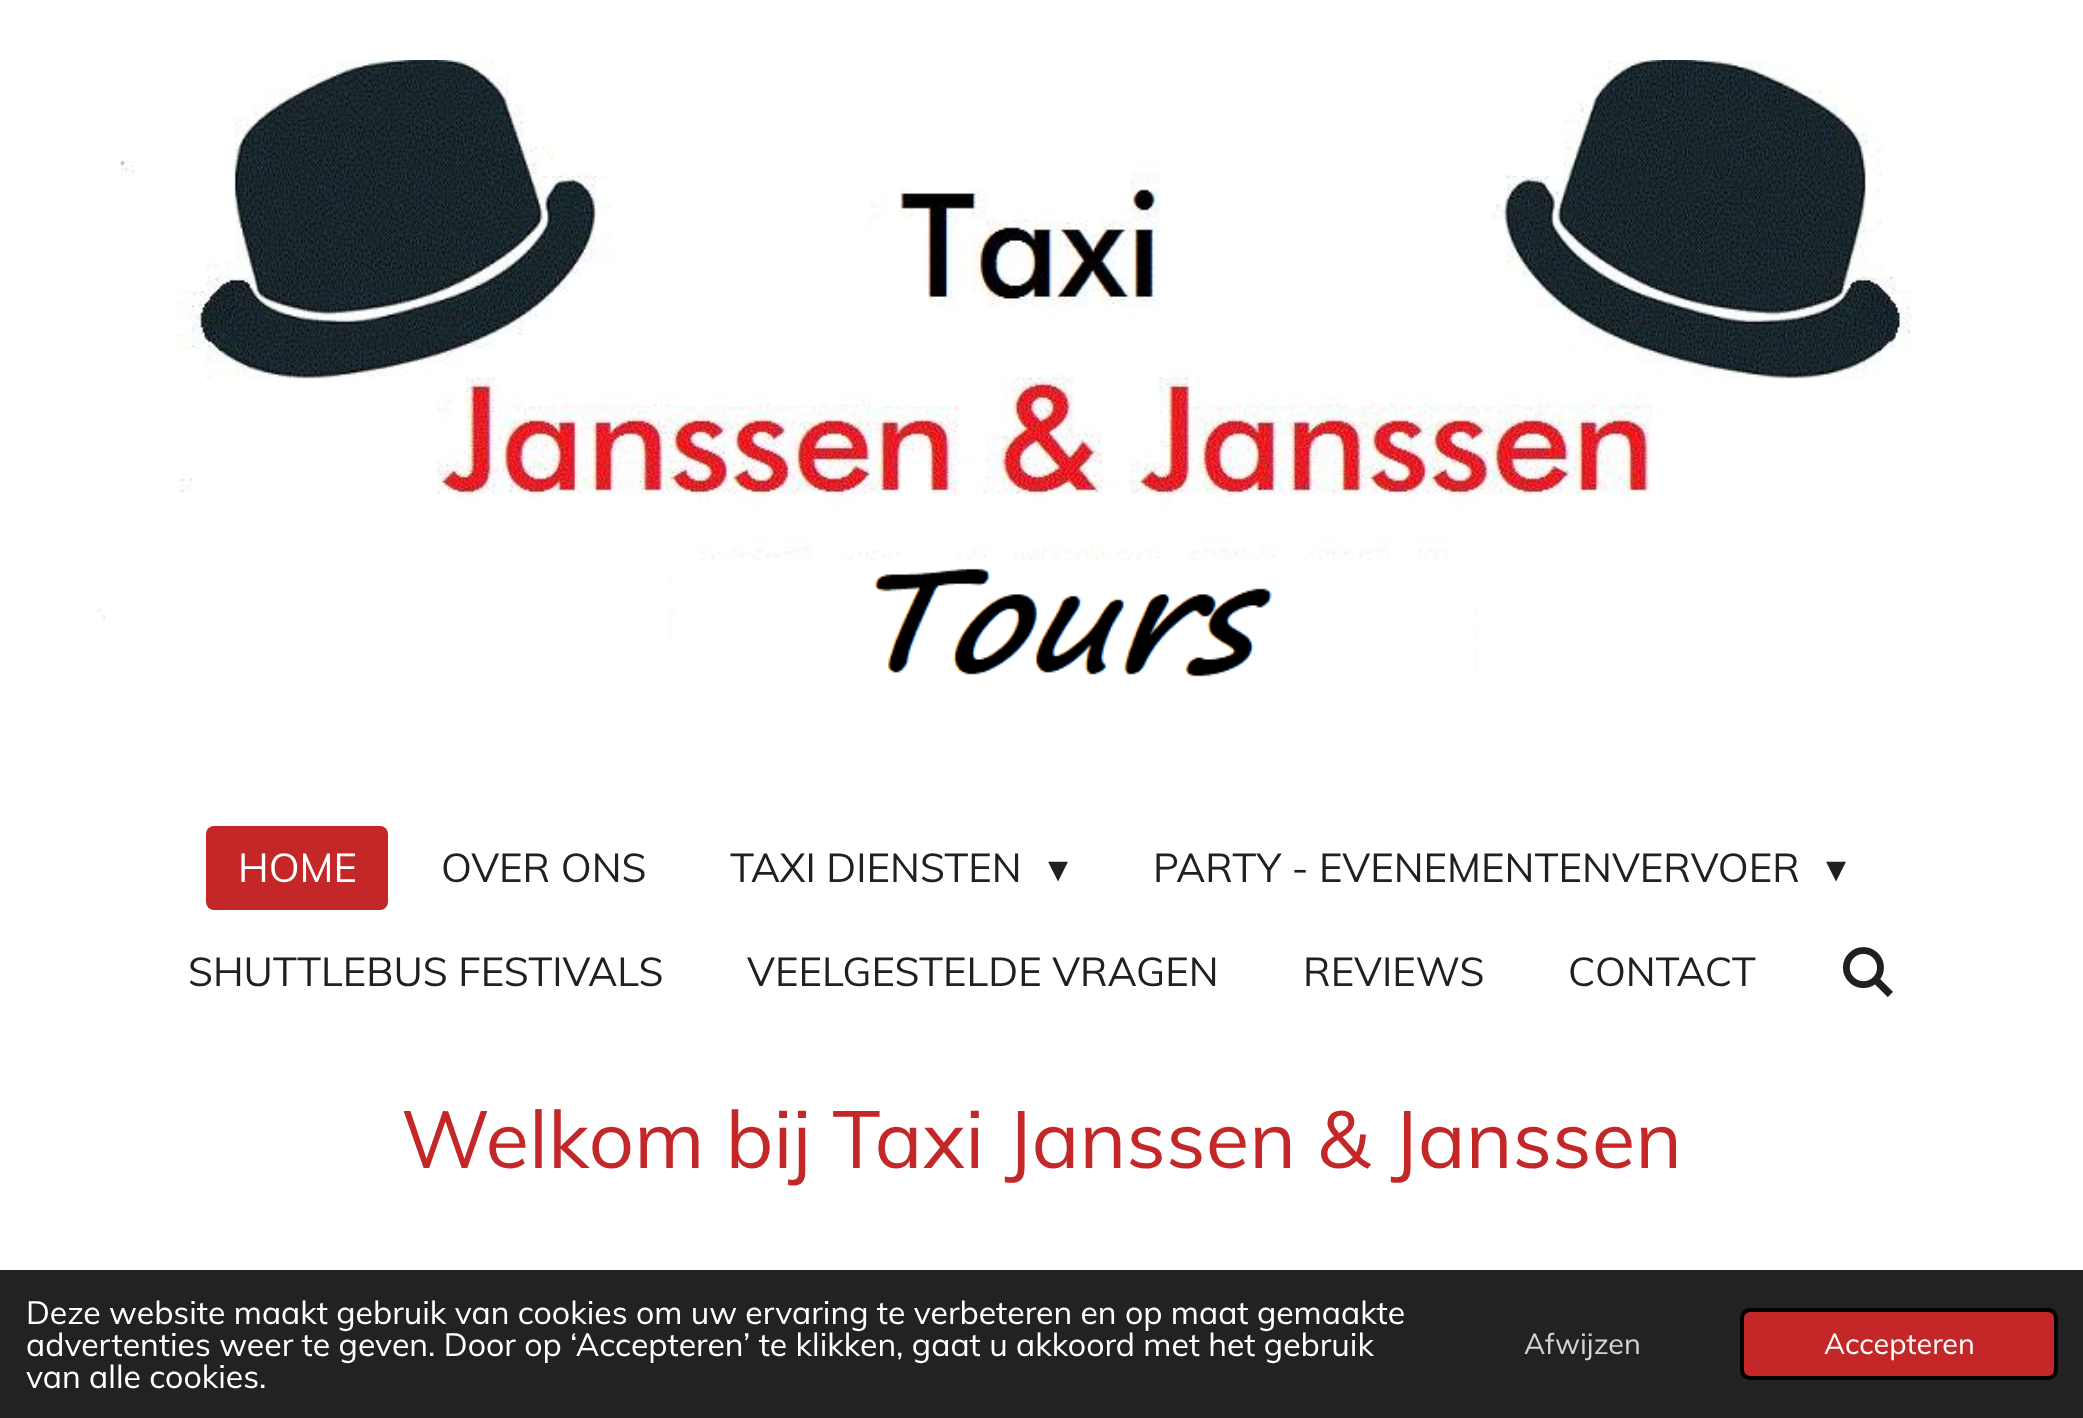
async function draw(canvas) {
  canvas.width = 2083
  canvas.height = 1418
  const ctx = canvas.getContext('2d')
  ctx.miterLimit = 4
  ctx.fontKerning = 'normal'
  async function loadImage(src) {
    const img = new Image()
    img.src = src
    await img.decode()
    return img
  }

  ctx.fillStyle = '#fff'
  ctx.fillRect(0, 0, 2083, 1418)
  ctx.drawImage(await loadImage('image0.png'), 96, 60, 1817, 617)
  ctx.fillStyle = '#c42727'
  ctx.beginPath()
  ctx.roundRect(206, 826, 182, 84, 8)
  ctx.fill()
  ctx.font = '40px Muli'
  ctx.fillStyle = '#fff'
  ctx.fillText('HOME', 238, 882)
  ctx.fillStyle = '#202020'
  ctx.fillText('OVER ONS', 441, 882)
  ctx.fillText('TAXI DIENSTEN', 730, 882)
  ctx.font = '40px DejaVu Sans'
  ctx.fillText('▾', 1048, 882)
  ctx.font = '40px Muli'
  ctx.fillText('PARTY - EVENEMENTENVERVOER', 1153, 882)
  ctx.font = '40px DejaVu Sans'
  ctx.fillText('▾', 1826, 882)
  ctx.font = '40px Muli'
  ctx.fillText('SHUTTLEBUS FESTIVALS', 188, 986)
  ctx.fillText('VEELGESTELDE VRAGEN', 747, 986)
  ctx.fillText('REVIEWS', 1303, 986)
  ctx.fillText('CONTACT', 1568, 986)
  ctx.drawImage(await loadImage('image1.png'), 1843, 947, 50, 50)
  ctx.font = '80px Muli'
  ctx.fillStyle = '#c42727'
  ctx.fillText('Welkom bij Taxi Janssen & Janssen', 401, 1168)
  ctx.fillStyle = '#222'
  ctx.fillRect(0, 1270, 2083, 148)
  ctx.font = '32px Muli'
  ctx.fillStyle = '#fff'
  ctx.fillText('Deze website maakt gebruik van cookies om uw ervaring te verbeteren en op maat gemaakte', 26, 1324)
  ctx.fillText('advertenties weer te geven. Door op ‘Accepteren’ te klikken, gaat u akkoord met het gebruik', 26, 1356)
  ctx.fillText('van alle cookies.', 26, 1388)
  ctx.font = '28.75px Muli'
  ctx.fillStyle = '#d3d3d3'
  ctx.fillText('Afwijzen', 1524, 1354)
  ctx.fillStyle = '#c42727'
  ctx.beginPath()
  ctx.roundRect(1742, 1310, 314, 68, 8)
  ctx.fill()
  ctx.strokeStyle = '#000'
  ctx.lineWidth = 4
  ctx.stroke()
  ctx.fillStyle = '#fff'
  ctx.fillText('Accepteren', 1824, 1354)
}

draw(document.querySelector('canvas'))
